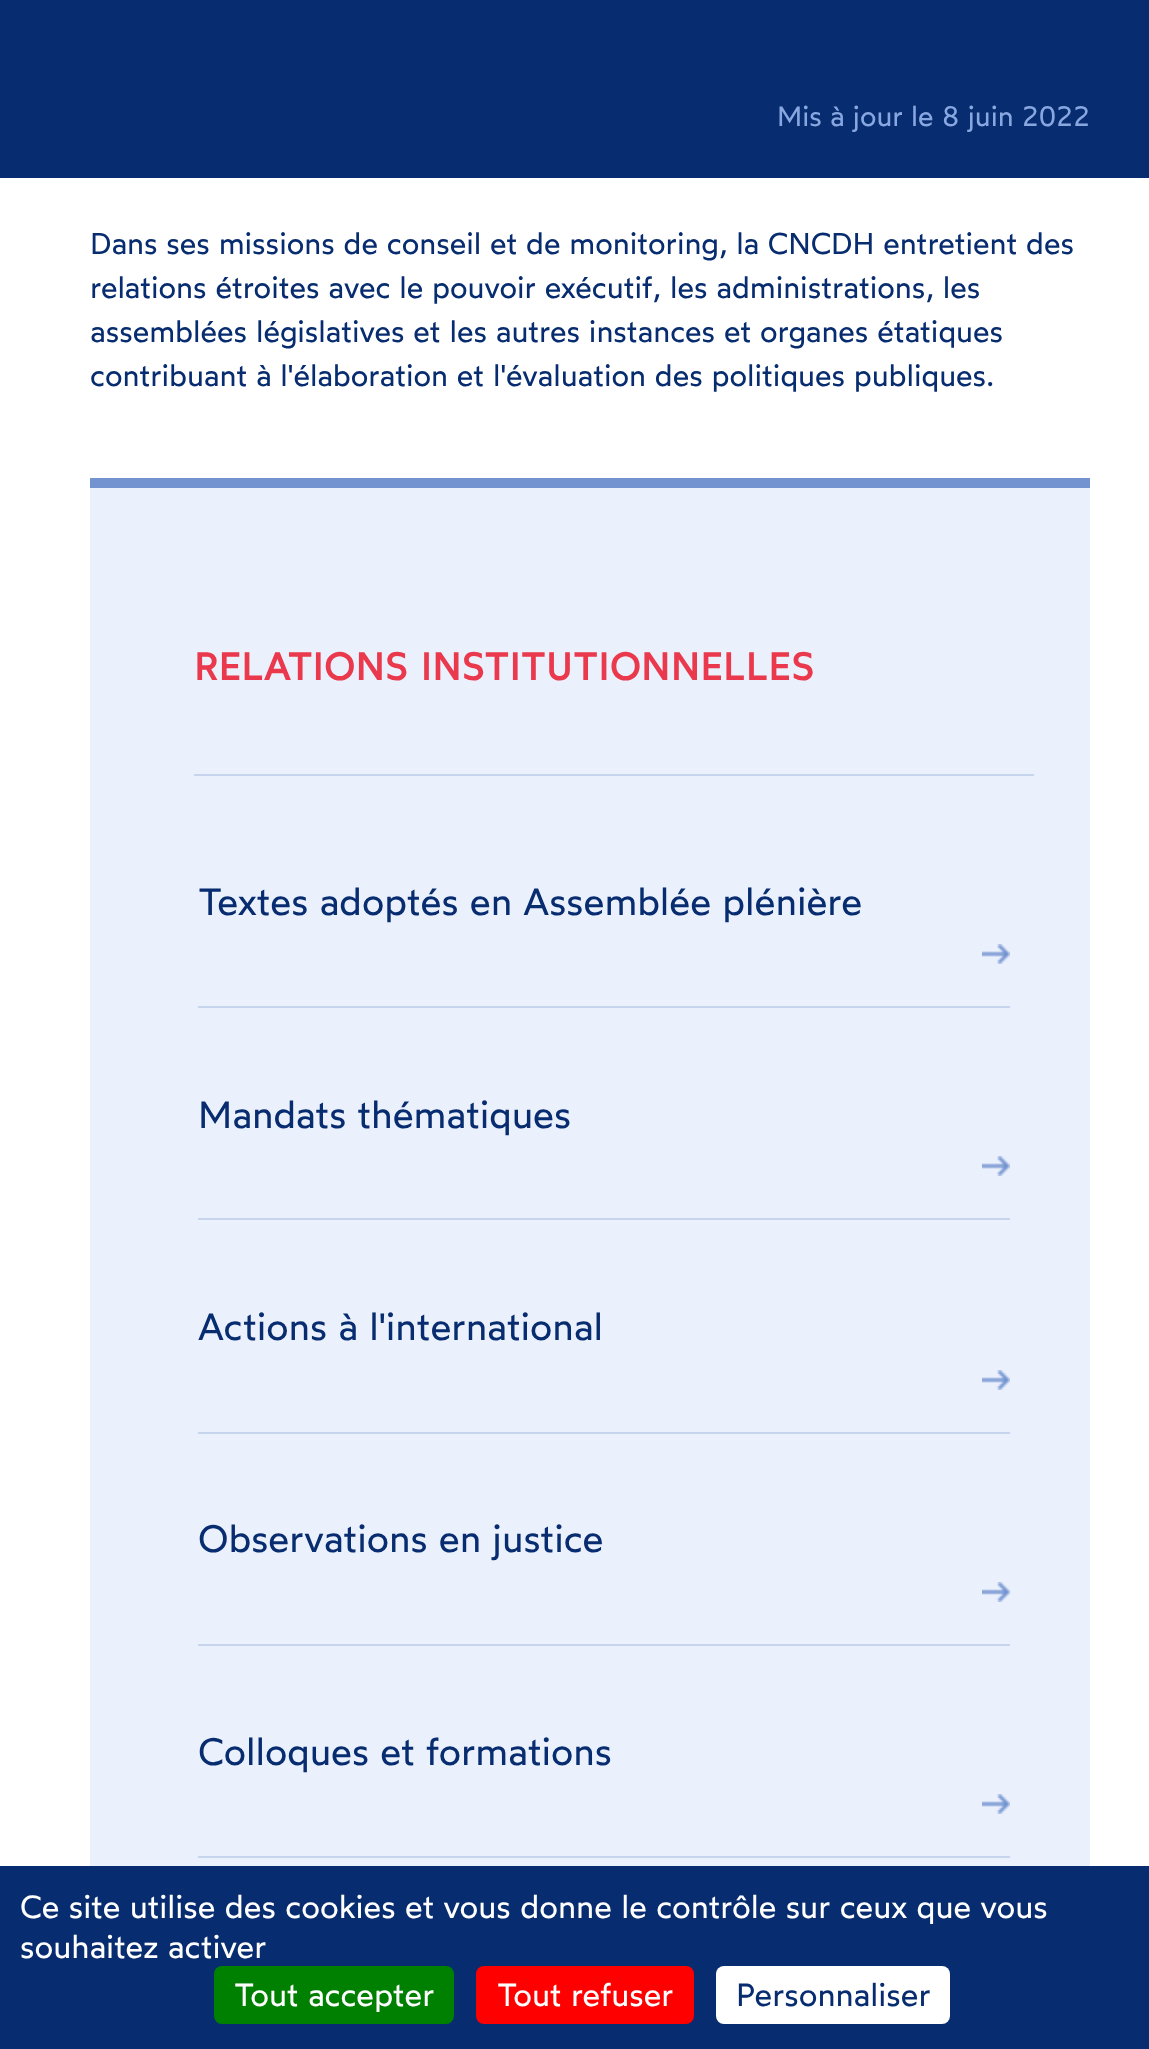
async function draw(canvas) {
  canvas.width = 1149
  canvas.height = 2049
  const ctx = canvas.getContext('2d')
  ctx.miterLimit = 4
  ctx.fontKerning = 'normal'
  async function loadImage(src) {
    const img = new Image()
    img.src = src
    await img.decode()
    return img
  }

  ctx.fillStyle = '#fff'
  ctx.fillRect(0, 0, 1149, 2049)
  ctx.fillStyle = '#072c6f'
  ctx.fillRect(0, 0, 1149, 178)
  ctx.font = '28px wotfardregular'
  ctx.fillStyle = '#88a7e1'
  ctx.fillText('Mis à jour le 8 juin 2022', 777, 126)
  ctx.font = '30px wotfardregular'
  ctx.fillStyle = '#072c6f'
  ctx.fillText('Dans ses missions de conseil et de monitoring, la CNCDH entretient des', 90, 254)
  ctx.fillText('relations étroites avec le pouvoir exécutif, les administrations, les', 90, 298)
  ctx.fillText('assemblées législatives et les autres instances et organes étatiques', 90, 342)
  ctx.fillText('contribuant à l\'élaboration et l\'évaluation des politiques publiques.', 90, 386)
  ctx.fillStyle = '#ebf1fc'
  ctx.fillRect(90, 488, 1000, 1378)
  ctx.fillStyle = '#7393d0'
  ctx.fillRect(90, 478, 1000, 10)
  ctx.fillStyle = '#c7d4ed'
  ctx.fillRect(194, 774, 840, 2)
  ctx.letterSpacing = '1px'
  ctx.font = 'bold 38px wotfardregular'
  ctx.fillStyle = '#ea384c'
  ctx.fillText('RELATIONS INSTITUTIONNELLES', 194, 680)
  ctx.fillStyle = '#c7d4ed'
  ctx.fillRect(198, 1006, 812, 2)
  ctx.letterSpacing = '0px'
  ctx.font = '38px wotfardregular'
  ctx.fillStyle = '#072c6f'
  ctx.fillText('Textes adoptés en Assemblée plénière', 198, 915)
  ctx.drawImage(await loadImage('image0.png'), 982, 944, 28, 20)
  ctx.fillStyle = '#c7d4ed'
  ctx.fillRect(198, 1218, 812, 2)
  ctx.fillStyle = '#072c6f'
  ctx.fillText('Mandats thématiques', 198, 1128)
  ctx.drawImage(await loadImage('image0.png'), 982, 1156, 28, 20)
  ctx.fillStyle = '#c7d4ed'
  ctx.fillRect(198, 1432, 812, 2)
  ctx.fillStyle = '#072c6f'
  ctx.fillText('Actions à l\'international', 198, 1340)
  ctx.drawImage(await loadImage('image0.png'), 982, 1370, 28, 20)
  ctx.fillStyle = '#c7d4ed'
  ctx.fillRect(198, 1644, 812, 2)
  ctx.fillStyle = '#072c6f'
  ctx.fillText('Observations en justice', 198, 1552)
  ctx.drawImage(await loadImage('image0.png'), 982, 1582, 28, 20)
  ctx.fillStyle = '#c7d4ed'
  ctx.fillRect(198, 1856, 812, 2)
  ctx.fillStyle = '#072c6f'
  ctx.fillText('Colloques et formations', 198, 1765)
  ctx.drawImage(await loadImage('image0.png'), 982, 1794, 28, 20)
  ctx.fillRect(0, 1866, 1149, 183)
  ctx.font = '32px wotfardregular'
  ctx.fillStyle = '#fff'
  ctx.fillText('Ce site utilise des cookies et vous donne le contrôle sur ceux que vous', 20, 1918)
  ctx.fillText('souhaitez activer', 20, 1958)
  ctx.fillStyle = '#008000'
  ctx.beginPath()
  ctx.roundRect(214, 1966, 240, 58, 8)
  ctx.fill()
  ctx.fillStyle = '#fff'
  ctx.fillText('Tout accepter', 234, 2006)
  ctx.fillStyle = '#f00'
  ctx.beginPath()
  ctx.roundRect(476, 1966, 218, 58, 8)
  ctx.fill()
  ctx.fillStyle = '#fff'
  ctx.fillText('Tout refuser', 497, 2006)
  ctx.beginPath()
  ctx.roundRect(716, 1966, 234, 58, 8)
  ctx.fill()
  ctx.fillStyle = '#072c6f'
  ctx.fillText('Personnaliser', 736, 2006)
}

draw(document.querySelector('canvas'))
